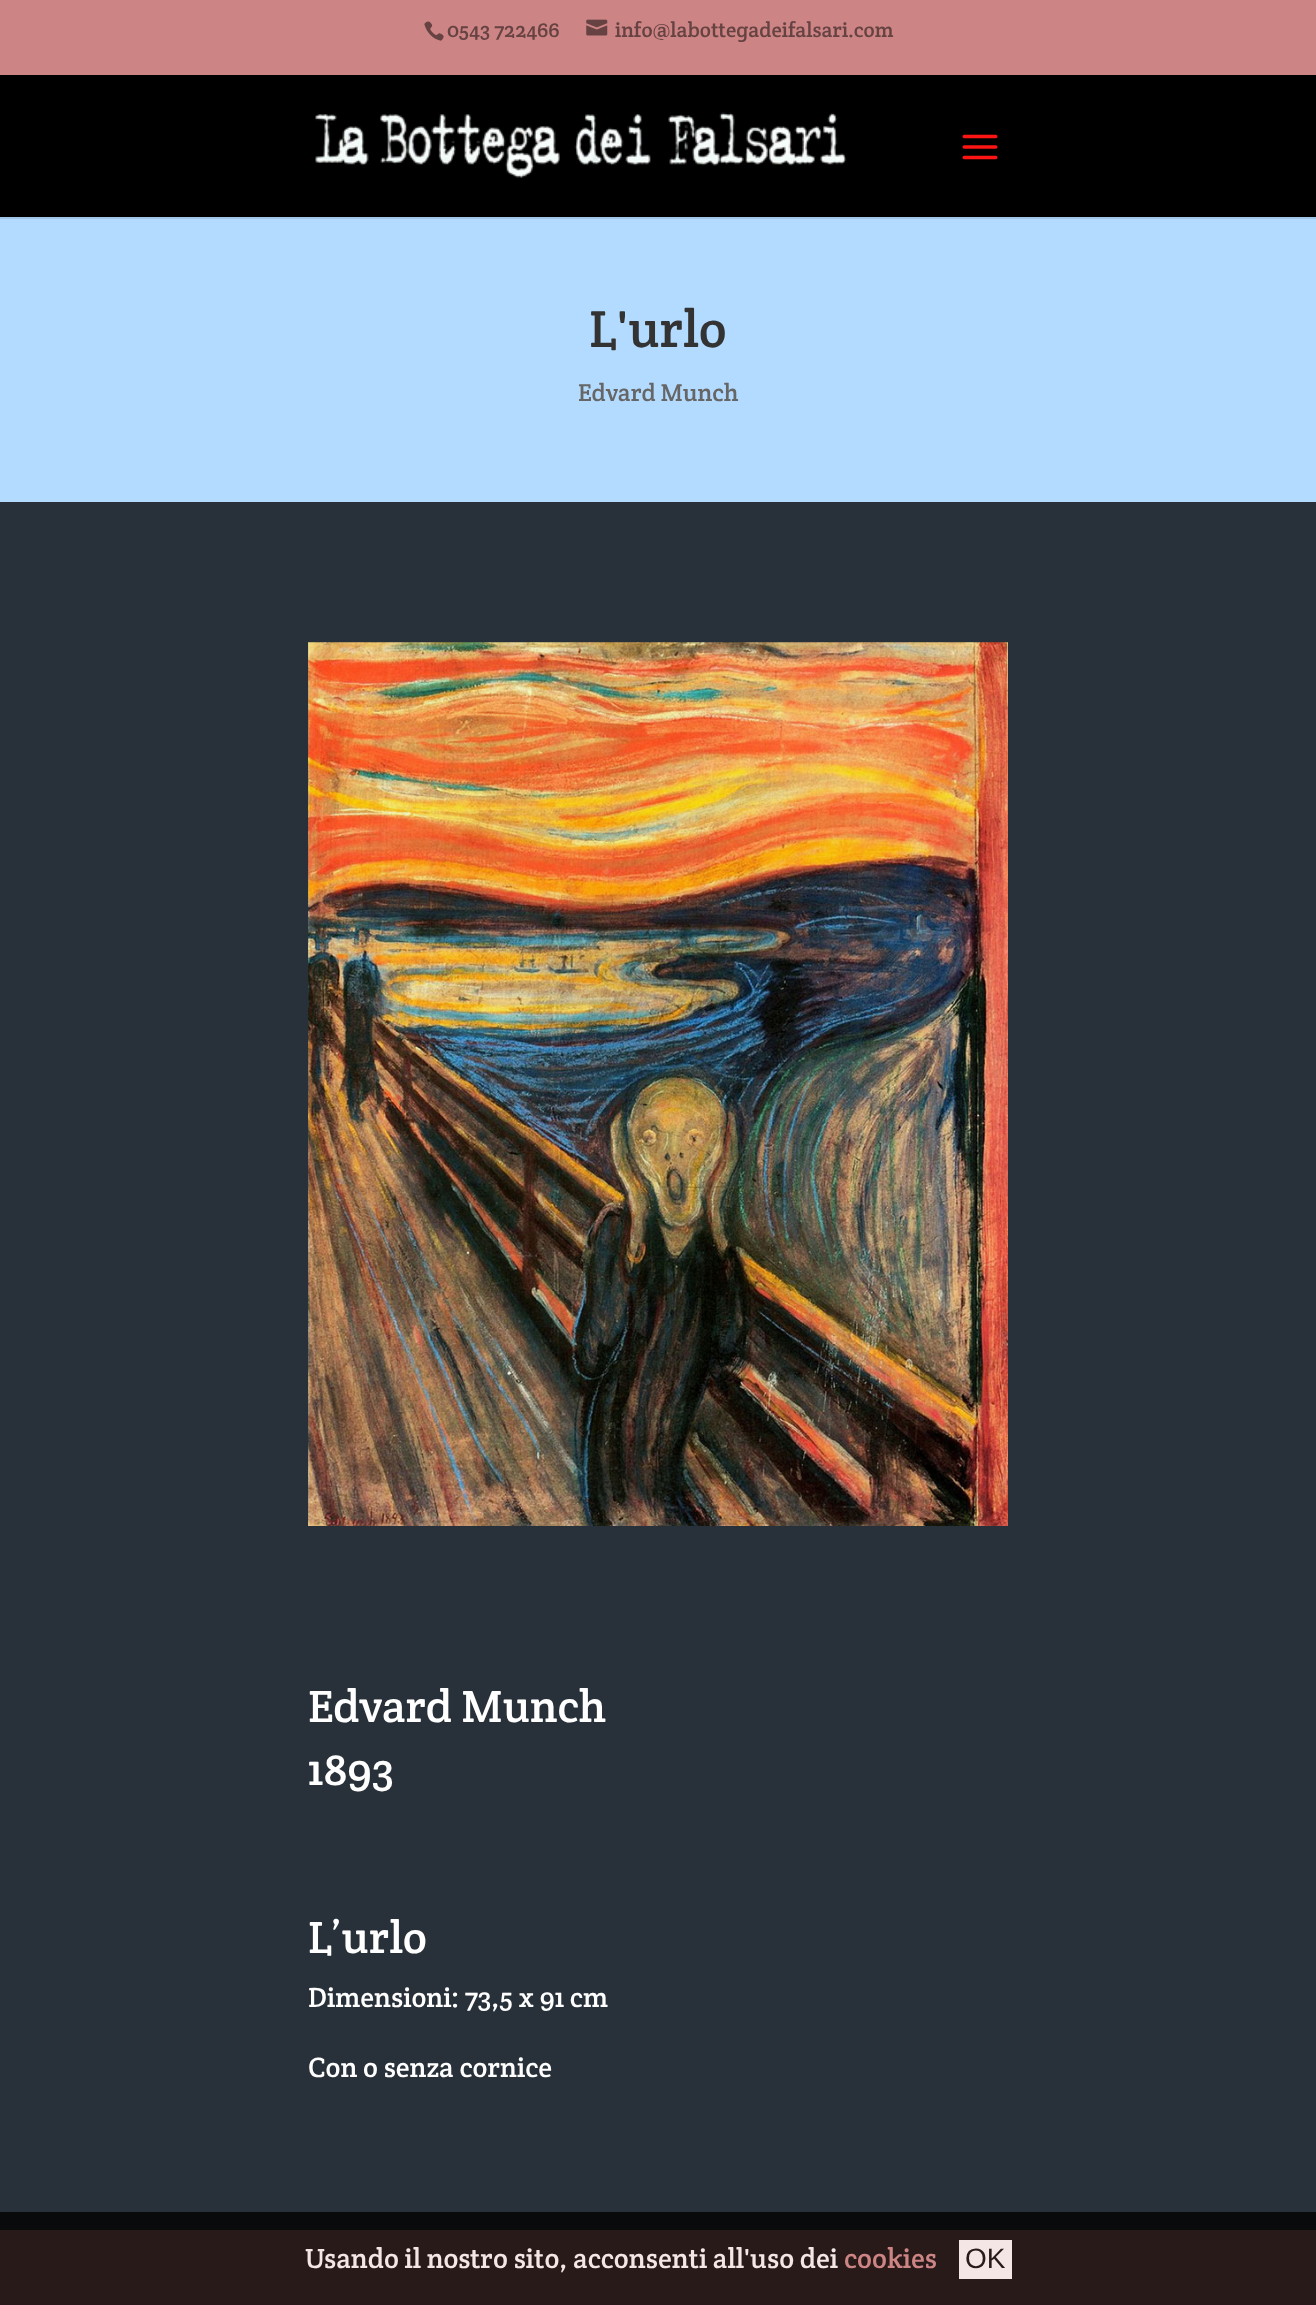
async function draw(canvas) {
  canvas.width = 1316
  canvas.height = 2305
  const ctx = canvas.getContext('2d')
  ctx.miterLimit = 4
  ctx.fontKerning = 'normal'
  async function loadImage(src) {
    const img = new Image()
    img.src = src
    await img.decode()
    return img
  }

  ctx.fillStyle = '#b3dbff'
  ctx.fillRect(0, 0, 1316, 2305)
  ctx.fillStyle = '#cc8484'
  ctx.fillRect(0, 0, 1316, 75)
  ctx.drawImage(await loadImage('image0.png'), 424, 21, 20, 20)
  ctx.font = '21px Crete Round'
  ctx.fillStyle = '#664242'
  ctx.fillText('0543 722466', 447, 37)
  ctx.drawImage(await loadImage('image1.png'), 586, 19, 22, 17)
  ctx.fillText('info@labottegadeifalsari.com', 615, 37)
  ctx.fillStyle = '#a1c5e6'
  ctx.fillRect(0, 217, 1316, 2)
  ctx.fillStyle = '#000'
  ctx.fillRect(0, 75, 1316, 142)
  ctx.drawImage(await loadImage('image2.png'), 315, 112, 532, 66)
  ctx.drawImage(await loadImage('image3.png'), 962, 134, 36, 26)
  ctx.font = '52.5px Crete Round'
  ctx.fillStyle = '#333'
  ctx.fillText('L\'urlo', 589, 347)
  ctx.font = '24.5px Crete Round'
  ctx.fillStyle = '#666'
  ctx.fillText('Edvard Munch', 578, 401)
  ctx.fillStyle = '#283139'
  ctx.fillRect(0, 502, 1316, 1710)
  ctx.fillStyle = '#080a0b'
  ctx.fillRect(0, 2212, 1316, 18)
  ctx.drawImage(await loadImage('image4.png'), 308, 642, 700, 884)
  ctx.font = '45.5px Crete Round'
  ctx.fillStyle = '#fff'
  ctx.fillText('Edvard Munch', 308, 1722)
  ctx.fillText('1893', 308, 1785)
  ctx.fillText('L’urlo', 308, 1953)
  ctx.font = '28px Crete Round'
  ctx.fillText('Dimensioni: 73,5 x 91 cm', 308, 2007)
  ctx.fillText('Con o senza cornice', 308, 2077)
  ctx.fillStyle = '#291a1a'
  ctx.fillRect(0, 2230, 1316, 75)
  ctx.fillStyle = '#f5e6e6'
  ctx.fillText('Usando il nostro sito, acconsenti all\'uso dei', 305, 2268)
  ctx.fillStyle = '#cc8484'
  ctx.fillText('cookies', 844, 2268)
  ctx.fillStyle = '#f5e6e6'
  ctx.fillRect(959, 2240, 53, 39)
  ctx.font = '28px Liberation Sans'
  ctx.fillStyle = '#291a1a'
  ctx.fillText('OK', 965, 2268)
}

draw(document.querySelector('canvas'))
